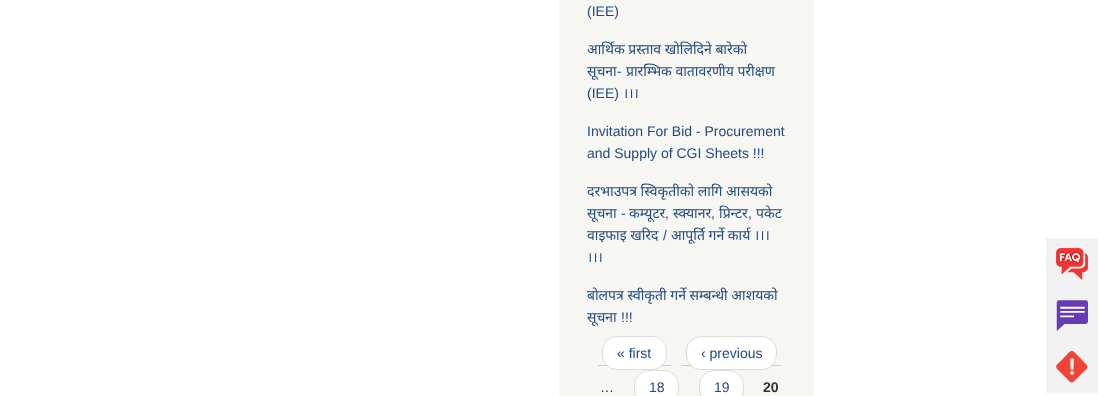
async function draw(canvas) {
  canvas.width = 1098
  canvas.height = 396
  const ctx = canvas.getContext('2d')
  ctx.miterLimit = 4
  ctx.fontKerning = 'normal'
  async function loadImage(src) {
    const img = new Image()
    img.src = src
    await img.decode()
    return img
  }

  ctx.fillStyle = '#fff'
  ctx.fillRect(0, 0, 1098, 396)
  ctx.fillStyle = '#f6f6f2'
  ctx.fillRect(559, 0, 255, 396)
  ctx.font = '14px Liberation Sans'
  ctx.fillStyle = '#234a83'
  ctx.fillText('(IEE)', 587, 16)
  ctx.font = '14px Noto Sans'
  ctx.fillText('आर्थिक प्रस्ताव खाेलिदिने बारेकाे', 587, 54)
  ctx.fillText('सूचना', 587, 76)
  ctx.font = '14px Liberation Sans'
  ctx.fillText('-', 617, 76)
  ctx.font = '14px Noto Sans'
  ctx.fillText('प्रारम्भिक वातावरणीय परीक्षण', 626, 76)
  ctx.font = '14px Liberation Sans'
  ctx.fillText('(IEE)', 587, 98)
  ctx.font = '14px Noto Sans'
  ctx.fillText('।।।', 623, 98)
  ctx.font = '14px Liberation Sans'
  ctx.fillText('Invitation For Bid - Procurement', 587, 136)
  ctx.fillText('and Supply of CGI Sheets !!!', 587, 158)
  ctx.font = '14px Noto Sans'
  ctx.fillText('दरभाउपत्र स्विकृतीकाे लागि आसयकाे', 587, 196)
  ctx.fillText('सूचना', 587, 218)
  ctx.font = '14px Liberation Sans'
  ctx.fillText('-', 621, 218)
  ctx.font = '14px Noto Sans'
  ctx.fillText('कम्यूटर', 629, 218)
  ctx.fillText('स्क्यानर', 673, 218)
  ctx.fillText('प्रिन्टर', 719, 218)
  ctx.fillText('पकेट', 756, 218)
  ctx.font = '14px Liberation Sans'
  ctx.fillText(',', 665, 218)
  ctx.fillText(',', 711, 218)
  ctx.fillText(',', 748, 218)
  ctx.font = '14px Noto Sans'
  ctx.fillText('वाइफाइ खरिद', 587, 240)
  ctx.font = '14px Liberation Sans'
  ctx.fillText('/', 663, 240)
  ctx.font = '14px Noto Sans'
  ctx.fillText('आपूर्ति गर्ने कार्य ।।।', 671, 240)
  ctx.fillText('।।।', 587, 262)
  ctx.fillText('बाेलपत्र स्वीकृती गर्ने सम्बन्धी आशयकाे', 587, 300)
  ctx.fillText('सूचना', 587, 322)
  ctx.font = '14px Liberation Sans'
  ctx.fillText('!!!', 621, 322)
  ctx.fillStyle = '#ccc'
  ctx.fillRect(598, 365, 73, 1)
  ctx.fillStyle = '#fff'
  ctx.beginPath()
  ctx.roundRect(602.5, 336.5, 64, 33, 14.5)
  ctx.fill()
  ctx.strokeStyle = '#ddd'
  ctx.stroke()
  ctx.fillStyle = '#234a83'
  ctx.fillText('« first', 617, 358)
  ctx.fillStyle = '#ccc'
  ctx.fillRect(682, 365, 99, 1)
  ctx.fillStyle = '#fff'
  ctx.beginPath()
  ctx.roundRect(686.5, 336.5, 90, 33, 14.5)
  ctx.fill()
  ctx.stroke()
  ctx.fillStyle = '#234a83'
  ctx.fillText('‹ previous', 701, 358)
  ctx.fillStyle = '#333'
  ctx.fillText('…', 600, 392)
  ctx.fillStyle = '#fff'
  ctx.beginPath()
  ctx.roundRect(634.5, 370.5, 44, 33, 14.5)
  ctx.fill()
  ctx.stroke()
  ctx.fillStyle = '#234a83'
  ctx.fillText('18', 649, 392)
  ctx.fillStyle = '#fff'
  ctx.beginPath()
  ctx.roundRect(699.5, 370.5, 44, 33, 14.5)
  ctx.fill()
  ctx.stroke()
  ctx.fillStyle = '#234a83'
  ctx.fillText('19', 714, 392)
  ctx.font = 'bold 14px Liberation Sans'
  ctx.fillStyle = '#333'
  ctx.fillText('20', 763, 392)
  ctx.fillStyle = '#f2f2f2'
  ctx.fillRect(1046, 238, 52, 155)
  ctx.drawImage(await loadImage('image0.png'), 1056, 248, 32, 32)
  ctx.drawImage(await loadImage('image1.png'), 1056, 300, 32, 31)
  ctx.drawImage(await loadImage('image2.png'), 1056, 351, 32, 32)
}

draw(document.querySelector('canvas'))
